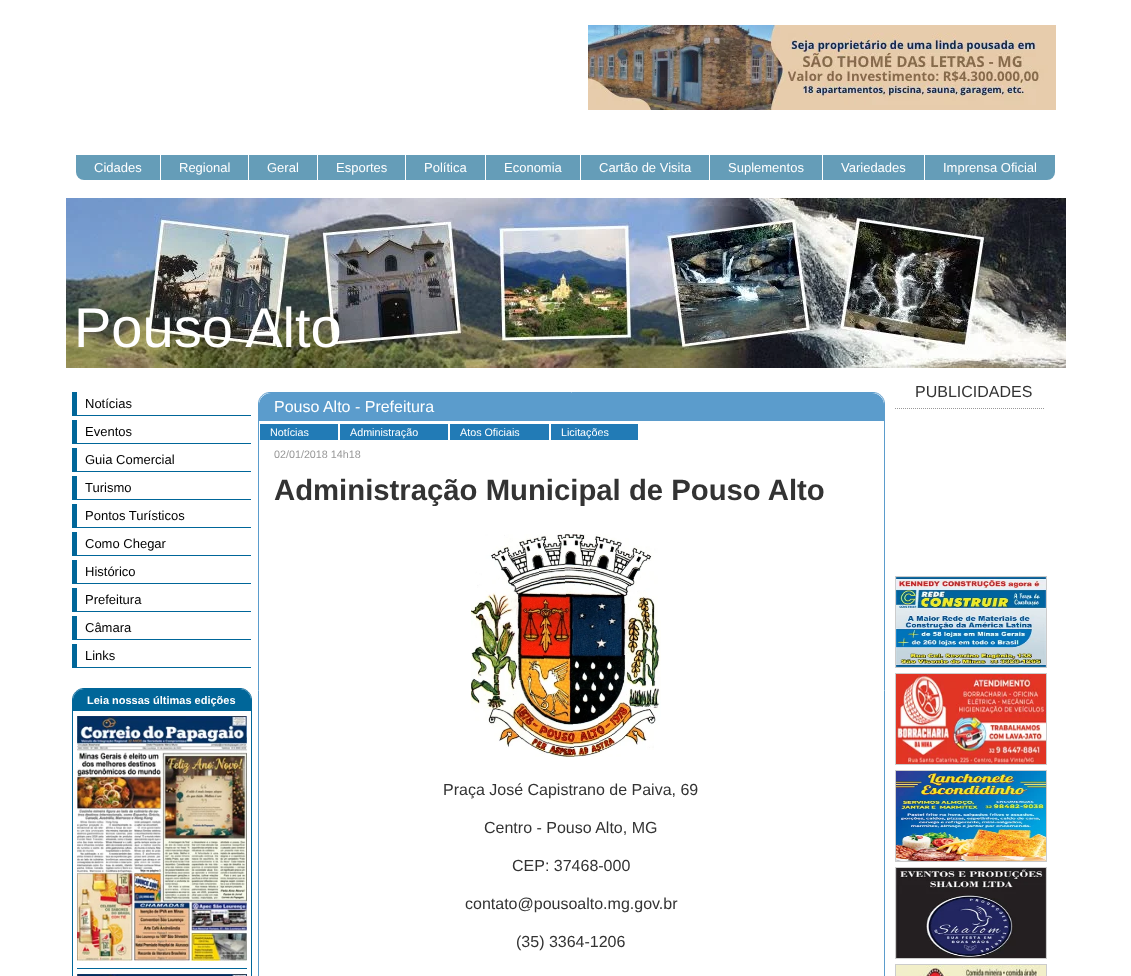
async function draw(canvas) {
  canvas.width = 1131
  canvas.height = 976
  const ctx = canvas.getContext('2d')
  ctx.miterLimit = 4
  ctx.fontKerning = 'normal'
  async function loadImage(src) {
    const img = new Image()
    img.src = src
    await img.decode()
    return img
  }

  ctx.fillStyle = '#fff'
  ctx.fillRect(0, 0, 1131, 976)
  ctx.drawImage(await loadImage('image0.png'), 588, 25, 468, 85)
  ctx.fillStyle = '#659db8'
  ctx.beginPath()
  ctx.roundRect(76, 155, 84, 25, [0, 0, 0, 8])
  ctx.fill()
  ctx.font = '13px Liberation Sans'
  ctx.fillStyle = '#fff'
  ctx.fillText('Cidades', 94, 172)
  ctx.fillStyle = '#659db8'
  ctx.fillRect(161, 155, 87, 25)
  ctx.fillStyle = '#fff'
  ctx.fillText('Regional', 179, 172)
  ctx.fillStyle = '#659db8'
  ctx.fillRect(249, 155, 68, 25)
  ctx.fillStyle = '#fff'
  ctx.fillText('Geral', 267, 172)
  ctx.fillStyle = '#659db8'
  ctx.fillRect(318, 155, 87, 25)
  ctx.fillStyle = '#fff'
  ctx.fillText('Esportes', 336, 172)
  ctx.fillStyle = '#659db8'
  ctx.fillRect(406, 155, 79, 25)
  ctx.fillStyle = '#fff'
  ctx.fillText('Política', 424, 172)
  ctx.fillStyle = '#659db8'
  ctx.fillRect(486, 155, 94, 25)
  ctx.fillStyle = '#fff'
  ctx.fillText('Economia', 504, 172)
  ctx.fillStyle = '#659db8'
  ctx.fillRect(581, 155, 128, 25)
  ctx.fillStyle = '#fff'
  ctx.fillText('Cartão de Visita', 599, 172)
  ctx.fillStyle = '#659db8'
  ctx.fillRect(710, 155, 112, 25)
  ctx.fillStyle = '#fff'
  ctx.fillText('Suplementos', 728, 172)
  ctx.fillStyle = '#659db8'
  ctx.fillRect(823, 155, 101, 25)
  ctx.fillStyle = '#fff'
  ctx.fillText('Variedades', 841, 172)
  ctx.fillStyle = '#659db8'
  ctx.beginPath()
  ctx.roundRect(925, 155, 130, 25, [0, 0, 8, 0])
  ctx.fill()
  ctx.fillStyle = '#fff'
  ctx.fillText('Imprensa Oficial', 943, 172)
  ctx.drawImage(await loadImage('image1.png'), 66, 198, 1000, 170)
  ctx.font = '56px Liberation Sans'
  ctx.fillText('Pouso Alto', 74, 347)
  ctx.beginPath()
  ctx.moveTo(895, 408.5)
  ctx.lineTo(1045, 408.5)
  ctx.strokeStyle = '#999'
  ctx.setLineDash([1, 1])
  ctx.stroke()
  ctx.font = '16px Liberation Sans'
  ctx.fillStyle = '#333'
  ctx.fillText('PUBLICIDADES', 915, 397)
  ctx.strokeStyle = '#ccc'
  ctx.setLineDash([])
  ctx.strokeRect(895.5, 576.5, 151, 91)
  ctx.drawImage(await loadImage('image2.png'), 896, 577, 150, 90)
  ctx.strokeRect(895.5, 673.5, 151, 91)
  ctx.drawImage(await loadImage('image3.png'), 896, 674, 150, 90)
  ctx.strokeRect(895.5, 770.5, 151, 91)
  ctx.drawImage(await loadImage('image4.png'), 896, 771, 150, 90)
  ctx.strokeRect(895.5, 867.5, 151, 91)
  ctx.drawImage(await loadImage('image5.png'), 896, 868, 150, 90)
  ctx.strokeRect(895.5, 964.5, 151, 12)
  ctx.drawImage(await loadImage('image6.png'), 896, 965, 150, 11)
  ctx.fillStyle = '#069'
  ctx.fillRect(72, 415, 179, 1)
  ctx.fillRect(72, 392, 5, 24)
  ctx.font = '13px Liberation Sans'
  ctx.fillStyle = '#000'
  ctx.fillText('Notícias', 85, 408)
  ctx.fillStyle = '#069'
  ctx.fillRect(72, 443, 179, 1)
  ctx.fillRect(72, 420, 5, 24)
  ctx.fillStyle = '#000'
  ctx.fillText('Eventos', 85, 436)
  ctx.fillStyle = '#069'
  ctx.fillRect(72, 471, 179, 1)
  ctx.fillRect(72, 448, 5, 24)
  ctx.fillStyle = '#000'
  ctx.fillText('Guia Comercial', 85, 464)
  ctx.fillStyle = '#069'
  ctx.fillRect(72, 499, 179, 1)
  ctx.fillRect(72, 476, 5, 24)
  ctx.fillStyle = '#000'
  ctx.fillText('Turismo', 85, 492)
  ctx.fillStyle = '#069'
  ctx.fillRect(72, 527, 179, 1)
  ctx.fillRect(72, 504, 5, 24)
  ctx.fillStyle = '#000'
  ctx.fillText('Pontos Turísticos', 85, 520)
  ctx.fillStyle = '#069'
  ctx.fillRect(72, 555, 179, 1)
  ctx.fillRect(72, 532, 5, 24)
  ctx.fillStyle = '#000'
  ctx.fillText('Como Chegar', 85, 548)
  ctx.fillStyle = '#069'
  ctx.fillRect(72, 583, 179, 1)
  ctx.fillRect(72, 560, 5, 24)
  ctx.fillStyle = '#000'
  ctx.fillText('Histórico', 85, 576)
  ctx.fillStyle = '#069'
  ctx.fillRect(72, 611, 179, 1)
  ctx.fillRect(72, 588, 5, 24)
  ctx.fillStyle = '#000'
  ctx.fillText('Prefeitura', 85, 604)
  ctx.fillStyle = '#069'
  ctx.fillRect(72, 639, 179, 1)
  ctx.fillRect(72, 616, 5, 24)
  ctx.fillStyle = '#000'
  ctx.fillText('Câmara', 85, 632)
  ctx.fillStyle = '#069'
  ctx.fillRect(72, 667, 179, 1)
  ctx.fillRect(72, 644, 5, 24)
  ctx.fillStyle = '#000'
  ctx.fillText('Links', 85, 660)
  ctx.beginPath()
  ctx.moveTo(84, 688.5)
  ctx.lineTo(240, 688.5)
  ctx.bezierCurveTo(246.5, 688.5, 251.5, 693.5, 251.5, 700)
  ctx.lineTo(251.5, 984)
  ctx.bezierCurveTo(251.5, 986.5, 249.5, 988.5, 247, 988.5)
  ctx.lineTo(77, 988.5)
  ctx.bezierCurveTo(74.5, 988.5, 72.5, 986.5, 72.5, 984)
  ctx.lineTo(72.5, 700)
  ctx.bezierCurveTo(72.5, 693.5, 77.5, 688.5, 84, 688.5)
  ctx.closePath()
  ctx.strokeStyle = '#069'
  ctx.stroke()
  ctx.fillStyle = '#069'
  ctx.beginPath()
  ctx.roundRect(73, 689, 178, 22, [11, 11, 0, 0])
  ctx.fill()
  ctx.font = 'bold 11px Liberation Sans'
  ctx.fillStyle = '#fff'
  ctx.fillText('Leia nossas últimas edições', 87, 704)
  ctx.drawImage(await loadImage('image7.png'), 77, 716, 170, 245)
  ctx.fillStyle = '#069'
  ctx.fillRect(77, 968, 170, 1)
  ctx.drawImage(await loadImage('image8.png'), 77, 974, 170, 2)
  ctx.beginPath()
  ctx.moveTo(270, 392.5)
  ctx.lineTo(873, 392.5)
  ctx.bezierCurveTo(879.5, 392.5, 884.5, 397.5, 884.5, 404)
  ctx.lineTo(884.5, 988.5)
  ctx.lineTo(258.5, 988.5)
  ctx.lineTo(258.5, 404)
  ctx.bezierCurveTo(258.5, 397.5, 263.5, 392.5, 270, 392.5)
  ctx.closePath()
  ctx.strokeStyle = '#5b9ccc'
  ctx.stroke()
  ctx.fillStyle = '#5b9ccc'
  ctx.beginPath()
  ctx.roundRect(259, 393, 625, 28, [12, 12, 0, 0])
  ctx.fill()
  ctx.font = '16px Liberation Sans'
  ctx.fillStyle = '#fff'
  ctx.fillText('Pouso Alto - Prefeitura', 274, 412)
  ctx.fillStyle = '#227bb6'
  ctx.fillRect(260, 424, 78, 16)
  ctx.font = '10.75px Liberation Sans'
  ctx.fillStyle = '#fff'
  ctx.fillText('Notícias', 270, 436)
  ctx.fillStyle = '#227bb6'
  ctx.fillRect(340, 424, 108, 16)
  ctx.fillStyle = '#fff'
  ctx.fillText('Administração', 350, 436)
  ctx.fillStyle = '#227bb6'
  ctx.fillRect(450, 424, 99, 16)
  ctx.fillStyle = '#fff'
  ctx.fillText('Atos Oficiais', 460, 436)
  ctx.fillStyle = '#227bb6'
  ctx.fillRect(551, 424, 87, 16)
  ctx.fillStyle = '#fff'
  ctx.fillText('Licitações', 561, 436)
  ctx.fillStyle = '#999'
  ctx.fillText('02/01/2018 14h18', 274, 458)
  ctx.font = 'bold 29.3px Liberation Sans'
  ctx.fillStyle = '#333'
  ctx.fillText('Administração Municipal de Pouso Alto', 274, 500)
  ctx.drawImage(await loadImage('image9.png'), 471, 534, 190, 223)
  ctx.font = '16px Liberation Sans'
  ctx.fillText('Praça José Capistrano de Paiva, 69', 443, 795)
  ctx.fillText('Centro - Pouso Alto, MG', 484, 833)
  ctx.fillText('CEP: 37468-000', 512, 871)
  ctx.fillText('contato@pousoalto.mg.gov.br', 465, 909)
  ctx.fillText('(35) 3364-1206', 516, 947)
}

draw(document.querySelector('canvas'))
